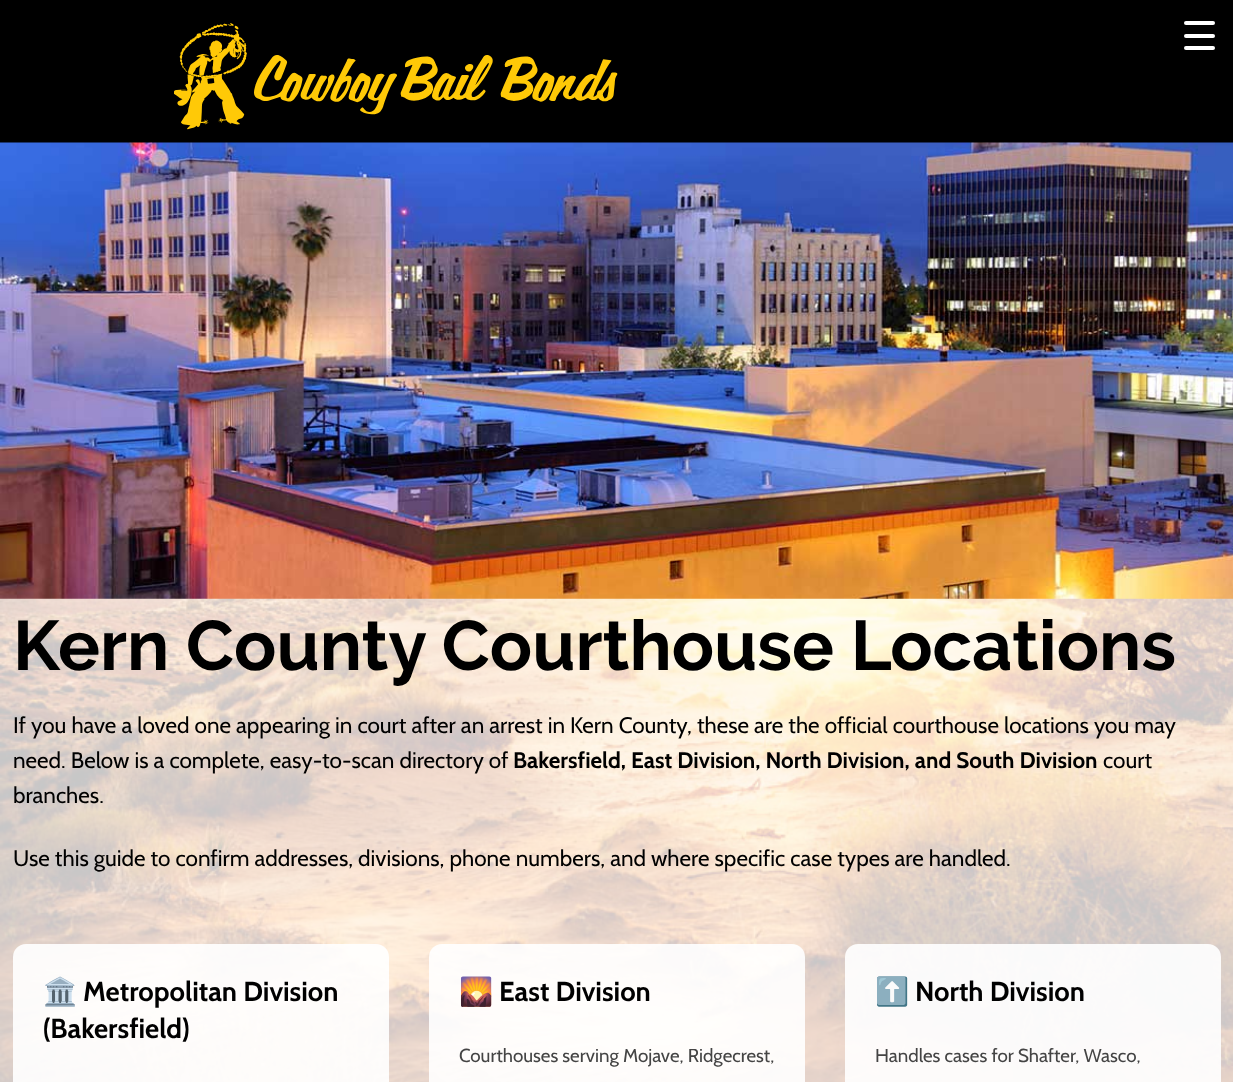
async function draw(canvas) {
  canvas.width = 1233
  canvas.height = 1082
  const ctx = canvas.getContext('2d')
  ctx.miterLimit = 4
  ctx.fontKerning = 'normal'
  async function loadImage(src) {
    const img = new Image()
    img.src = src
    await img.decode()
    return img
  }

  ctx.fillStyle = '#fff'
  ctx.fillRect(0, 0, 1233, 1082)
  ctx.fillStyle = '#000'
  ctx.fillRect(0, 0, 1233, 143)
  ctx.fillStyle = '#fff'
  ctx.beginPath()
  ctx.roundRect(1184, 34, 31, 4, 2)
  ctx.fill()
  ctx.beginPath()
  ctx.roundRect(1184, 21, 31, 4, 2)
  ctx.fill()
  ctx.beginPath()
  ctx.roundRect(1184, 46, 31, 4, 2)
  ctx.fill()
  ctx.drawImage(await loadImage('image0.png'), 0, 598, 1233, 484)
  ctx.drawImage(await loadImage('image1.png'), 174, 23, 444, 107)
  ctx.drawImage(await loadImage('image2.png'), 0, 142, 1233, 457)
  ctx.font = 'bold 70px Raleway'
  ctx.fillStyle = '#000'
  ctx.fillText('Kern County Courthouse Locations', 13, 670)
  ctx.font = '22.5px Cabin'
  ctx.fillText('If you have a loved one appearing in court after an arrest in Kern County, these are the official courthouse locations you may', 13, 733)
  ctx.fillText('need. Below is a complete, easy-to-scan directory of', 13, 768)
  ctx.font = 'bold 22.5px Cabin'
  ctx.fillText('Bakersfield, East Division, North Division, and South Division', 513, 768)
  ctx.font = '22.5px Cabin'
  ctx.fillText('court', 1103, 768)
  ctx.fillText('branches.', 13, 803)
  ctx.fillText('Use this guide to confirm addresses, divisions, phone numbers, and where specific case types are handled.', 13, 866)
  ctx.fillStyle = '#ffffffe6'
  ctx.beginPath()
  ctx.roundRect(13, 944, 376, 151, 13)
  ctx.fill()
  ctx.font = 'bold 27.5px Noto Color Emoji'
  ctx.fillStyle = '#000'
  ctx.fillText('🏛️', 43, 1001)
  ctx.font = 'bold 27.5px Cabin'
  ctx.fillText('Metropolitan Division', 83, 1001)
  ctx.fillText('(Bakersfield)', 43, 1038)
  ctx.fillStyle = '#ffffffe6'
  ctx.beginPath()
  ctx.roundRect(429, 944, 376, 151, 13)
  ctx.fill()
  ctx.font = 'bold 27.5px Noto Color Emoji'
  ctx.fillStyle = '#000'
  ctx.fillText('🌄', 459, 1001)
  ctx.font = 'bold 27.5px Cabin'
  ctx.fillText('East Division', 499, 1001)
  ctx.font = '18.75px Cabin'
  ctx.fillStyle = '#444'
  ctx.fillText('Courthouses serving Mojave, Ridgecrest,', 459, 1062)
  ctx.fillStyle = '#ffffffe6'
  ctx.beginPath()
  ctx.roundRect(845, 944, 376, 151, 13)
  ctx.fill()
  ctx.font = 'bold 27.5px Noto Color Emoji'
  ctx.fillStyle = '#000'
  ctx.fillText('⬆️', 875, 1001)
  ctx.font = 'bold 27.5px Cabin'
  ctx.fillText('North Division', 915, 1001)
  ctx.font = '18.75px Cabin'
  ctx.fillStyle = '#444'
  ctx.fillText('Handles cases for Shafter, Wasco,', 875, 1062)
}

draw(document.querySelector('canvas'))
